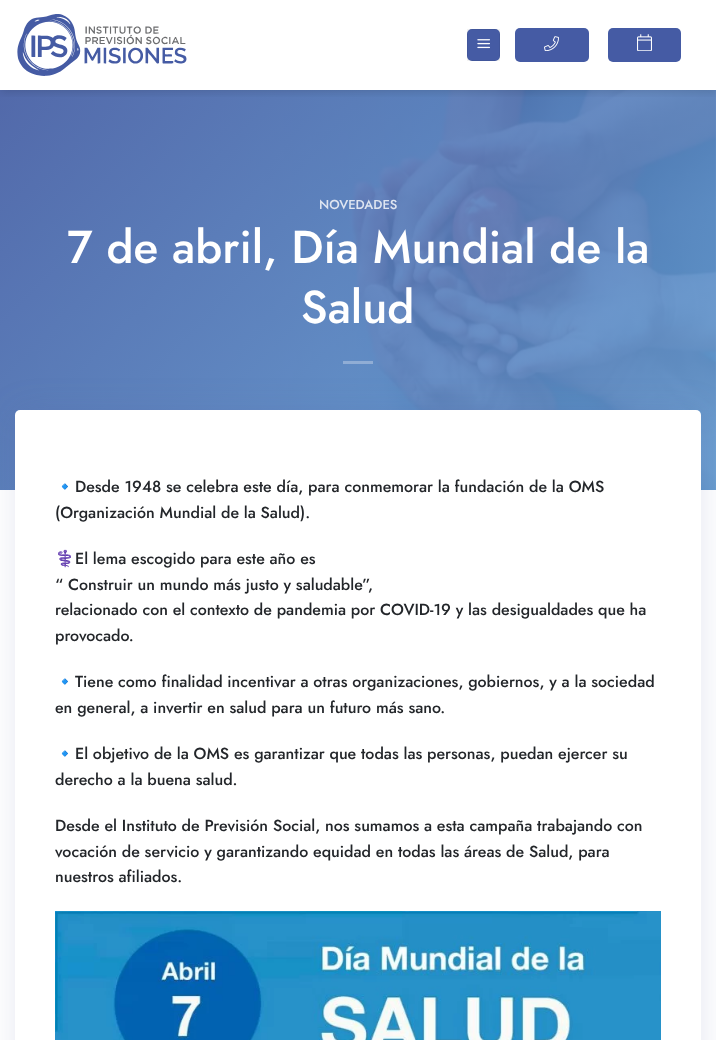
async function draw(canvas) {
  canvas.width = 716
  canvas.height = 1040
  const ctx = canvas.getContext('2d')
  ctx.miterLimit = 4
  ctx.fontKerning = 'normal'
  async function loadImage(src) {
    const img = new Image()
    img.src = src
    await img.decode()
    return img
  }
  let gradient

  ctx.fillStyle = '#fff'
  ctx.fillRect(0, 0, 716, 1040)
  ctx.drawImage(await loadImage('image4.png'), 0, 90, 716, 400)
  gradient = ctx.createLinearGradient(79, 11, 637, 569)
  gradient.addColorStop(0, '#455ba4e6')
  gradient.addColorStop(1, '#66a1d9e6')
  ctx.fillStyle = gradient
  ctx.fillRect(0, 90, 716, 400)
  ctx.save()
  ctx.beginPath()
  ctx.rect(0, 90, 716, 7)
  ctx.clip()
  ctx.fillStyle = '#00000026'
  ctx.filter = 'blur(5px)'
  ctx.beginPath()
  ctx.rect(1, 1, 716, 90)
  ctx.fill()
  ctx.filter = 'none'
  ctx.restore()
  ctx.drawImage(await loadImage('image0.png'), 17, 14, 170, 62)
  ctx.fillStyle = '#455ba4'
  ctx.beginPath()
  ctx.roundRect(467, 29, 33, 32, 5)
  ctx.fill()
  ctx.strokeStyle = '#0000000d'
  ctx.strokeRect(467.5, 29.5, 32, 31)
  ctx.drawImage(await loadImage('image1.png'), 477, 39, 13, 10)
  ctx.beginPath()
  ctx.roundRect(515, 28, 74, 34, 5)
  ctx.fill()
  ctx.drawImage(await loadImage('image2.png'), 544, 36, 15, 15)
  ctx.beginPath()
  ctx.roundRect(608, 28, 73, 34, 5)
  ctx.fill()
  ctx.drawImage(await loadImage('image3.png'), 637, 34, 15, 17)
  ctx.font = '500 13px Jost'
  ctx.fillStyle = '#dfe5f1'
  ctx.fillText('NOVEDADES', 319, 209)
  ctx.font = '500 46px Jost'
  ctx.fillStyle = '#fff'
  ctx.fillText('7 de abril, Día Mundial de la', 67, 263)
  ctx.fillText('Salud', 301, 323)
  ctx.fillStyle = '#90add5'
  ctx.fillRect(343, 361, 30, 3)
  ctx.fillStyle = '#535f9f26'
  ctx.filter = 'blur(16.5px)'
  ctx.beginPath()
  ctx.roundRect(16, 411, 686, 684, 5)
  ctx.fill()
  ctx.filter = 'none'
  ctx.fillStyle = '#fff'
  ctx.beginPath()
  ctx.roundRect(15, 410, 686, 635, 5)
  ctx.fill()
  ctx.font = '16px Noto Color Emoji'
  ctx.fillStyle = '#23262a'
  ctx.fillText('🔹', 55, 492)
  ctx.font = '500 16px Jost'
  ctx.fillText('Desde 1948 se celebra este día, para conmemorar la fundación de la OMS', 75, 492)
  ctx.fillText('(Organización Mundial de la Salud).', 55, 518)
  ctx.font = '16px Noto Color Emoji'
  ctx.fillText('⚕️', 55, 564)
  ctx.font = '500 16px Jost'
  ctx.fillText('El lema escogido para este año es', 75, 564)
  ctx.fillText('“ Construir un mundo más justo y saludable”,', 55, 590)
  ctx.fillText('relacionado con el contexto de pandemia por COVID-19 y las desigualdades que ha', 55, 615)
  ctx.fillText('provocado.', 55, 641)
  ctx.font = '16px Noto Color Emoji'
  ctx.fillText('🔹', 55, 687)
  ctx.font = '500 16px Jost'
  ctx.fillText('Tiene como finalidad incentivar a otras organizaciones, gobiernos, y a la sociedad', 75, 687)
  ctx.fillText('en general, a invertir en salud para un futuro más sano.', 55, 713)
  ctx.font = '16px Noto Color Emoji'
  ctx.fillText('🔹', 55, 759)
  ctx.font = '500 16px Jost'
  ctx.fillText('El objetivo de la OMS es garantizar que todas las personas, puedan ejercer su', 75, 759)
  ctx.fillText('derecho a la buena salud.', 55, 785)
  ctx.fillText('Desde el Instituto de Previsión Social, nos sumamos a esta campaña trabajando con', 55, 831)
  ctx.fillText('vocación de servicio y garantizando equidad en todas las áreas de Salud, para', 55, 857)
  ctx.fillText('nuestros afiliados.', 55, 882)
  ctx.drawImage(await loadImage('image5.png'), 55, 911, 606, 129)
}

draw(document.querySelector('canvas'))
